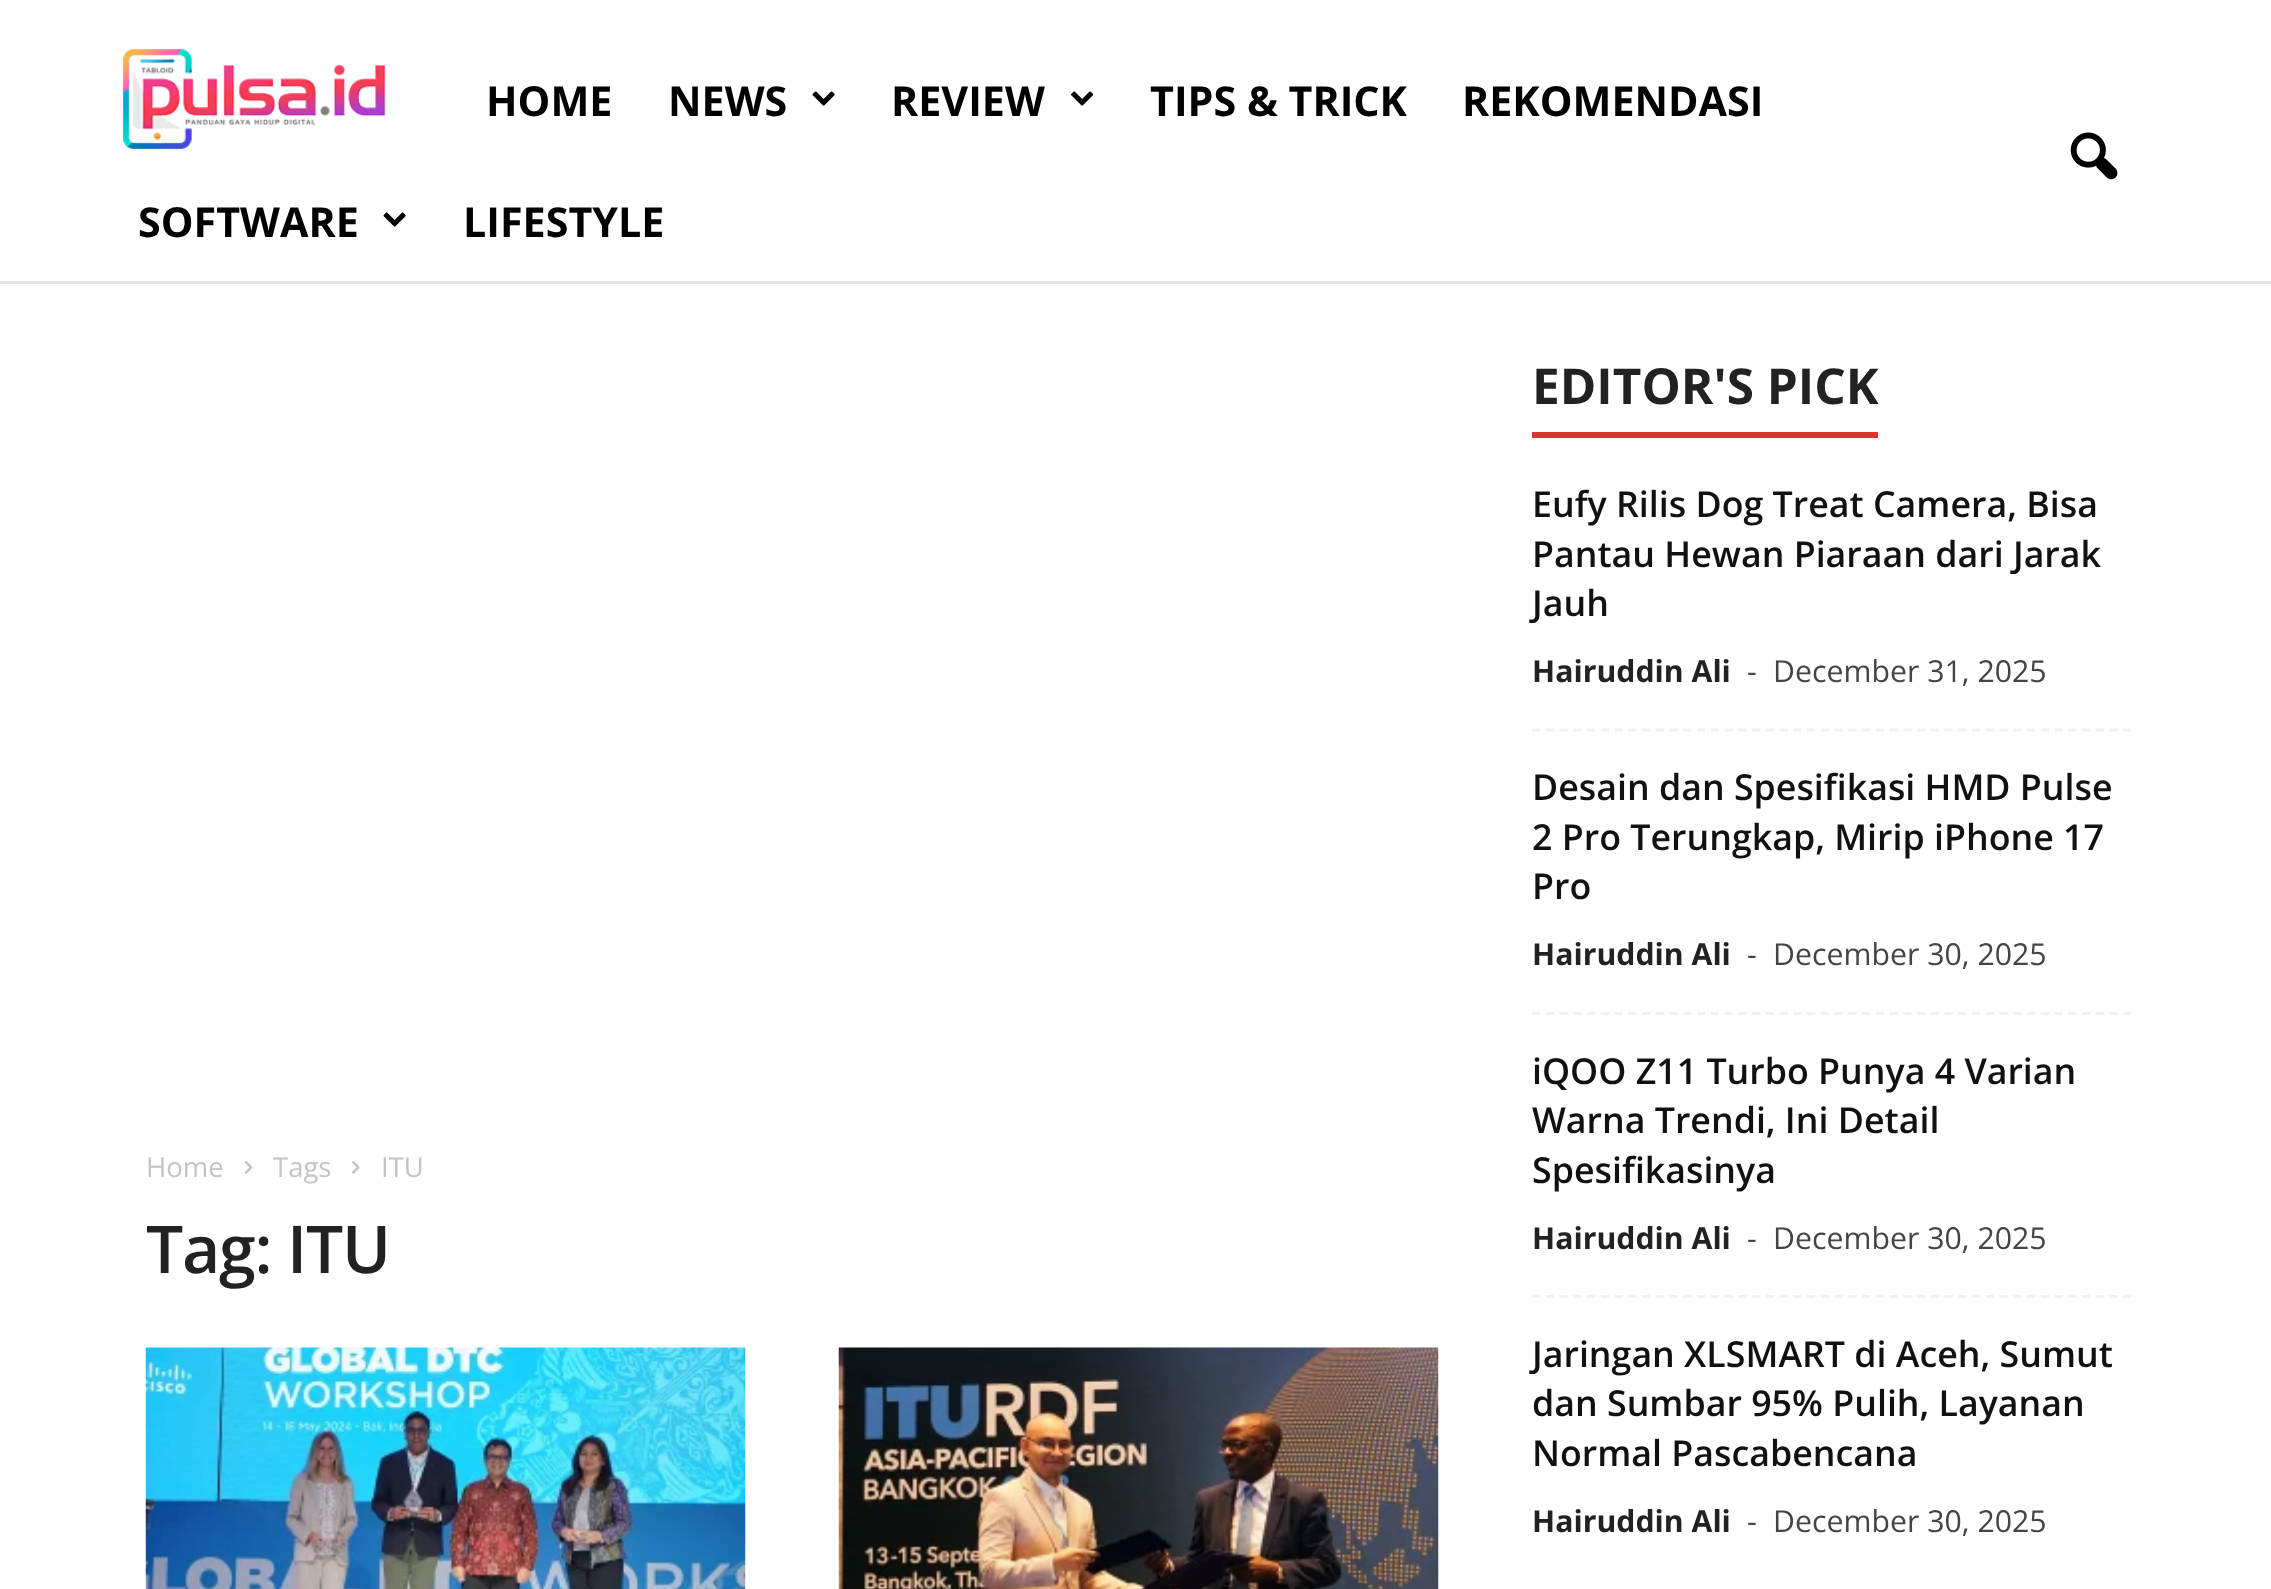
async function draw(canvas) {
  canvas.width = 2271
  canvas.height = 1589
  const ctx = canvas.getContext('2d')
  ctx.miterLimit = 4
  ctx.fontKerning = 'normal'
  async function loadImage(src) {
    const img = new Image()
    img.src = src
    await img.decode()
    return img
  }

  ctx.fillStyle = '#fff'
  ctx.fillRect(0, 0, 2271, 1589)
  ctx.fillStyle = '#e6e6e6'
  ctx.fillRect(0, 281, 2271, 3)
  ctx.drawImage(await loadImage('image0.png'), 122, 49, 264, 101)
  ctx.font = 'bold 41.25px Open Sans'
  ctx.fillStyle = '#000'
  ctx.fillText('HOME', 486, 116)
  ctx.fillText('NEWS', 668, 116)
  ctx.drawImage(await loadImage('image1.png'), 812, 91, 23, 15)
  ctx.fillText('REVIEW', 891, 116)
  ctx.drawImage(await loadImage('image2.png'), 1071, 91, 23, 15)
  ctx.fillText('TIPS & TRICK', 1150, 116)
  ctx.fillText('REKOMENDASI', 1462, 116)
  ctx.fillText('SOFTWARE', 138, 237)
  ctx.drawImage(await loadImage('image1.png'), 383, 212, 23, 15)
  ctx.fillText('LIFESTYLE', 463, 237)
  ctx.drawImage(await loadImage('image3.png'), 2070, 132, 48, 48)
  ctx.font = '27.5px Open Sans'
  ctx.fillStyle = '#c3c3c3'
  ctx.fillText('Home', 146, 1177)
  ctx.drawImage(await loadImage('image4.png'), 244, 1161, 9, 13)
  ctx.fillText('Tags', 273, 1177)
  ctx.drawImage(await loadImage('image5.png'), 352, 1161, 8, 13)
  ctx.fillText('ITU', 381, 1177)
  ctx.letterSpacing = '-1.25px'
  ctx.font = '600 66px Open Sans'
  ctx.fillStyle = '#222'
  ctx.fillText('Tag: ITU', 146, 1273)
  ctx.drawImage(await loadImage('image6.png'), 145, 1347, 601, 242)
  ctx.drawImage(await loadImage('image7.png'), 838, 1347, 601, 242)
  ctx.letterSpacing = '0px'
  ctx.font = 'bold 49.5px Open Sans'
  ctx.fillText('EDITOR\'S PICK', 1532, 404)
  ctx.fillStyle = '#d33'
  ctx.fillRect(1532, 432, 346, 6)
  ctx.beginPath()
  ctx.moveTo(1532, 730)
  ctx.lineTo(2131, 730)
  ctx.strokeStyle = '#f1f1f1'
  ctx.lineWidth = 2.8
  ctx.setLineDash([8.25, 5.5])
  ctx.stroke()
  ctx.font = '600 35.75px Open Sans'
  ctx.fillStyle = '#111'
  ctx.fillText('Eufy Rilis Dog Treat Camera, Bisa', 1532, 517)
  ctx.fillText('Pantau Hewan Piaraan dari Jarak', 1532, 567)
  ctx.fillText('Jauh', 1532, 616)
  ctx.font = 'bold 30.25px Open Sans'
  ctx.fillStyle = '#222'
  ctx.fillText('Hairuddin Ali', 1532, 682)
  ctx.font = '30.25px Open Sans'
  ctx.fillStyle = '#444'
  ctx.fillText('-', 1747, 682)
  ctx.fillText('December 31, 2025', 1773, 682)
  ctx.beginPath()
  ctx.moveTo(1532, 1013.5)
  ctx.lineTo(2131, 1013.5)
  ctx.stroke()
  ctx.font = '600 35.75px Open Sans'
  ctx.fillStyle = '#111'
  ctx.fillText('Desain dan Spesifikasi HMD Pulse', 1532, 800)
  ctx.fillText('2 Pro Terungkap, Mirip iPhone 17', 1532, 850)
  ctx.fillText('Pro', 1532, 899)
  ctx.font = 'bold 30.25px Open Sans'
  ctx.fillStyle = '#222'
  ctx.fillText('Hairuddin Ali', 1532, 965)
  ctx.font = '30.25px Open Sans'
  ctx.fillStyle = '#444'
  ctx.fillText('-', 1747, 965)
  ctx.fillText('December 30, 2025', 1773, 965)
  ctx.beginPath()
  ctx.moveTo(1532, 1296.5)
  ctx.lineTo(2131, 1296.5)
  ctx.stroke()
  ctx.font = '600 35.75px Open Sans'
  ctx.fillStyle = '#111'
  ctx.fillText('iQOO Z11 Turbo Punya 4 Varian', 1532, 1084)
  ctx.fillText('Warna Trendi, Ini Detail', 1532, 1133)
  ctx.fillText('Spesifikasinya', 1532, 1183)
  ctx.font = 'bold 30.25px Open Sans'
  ctx.fillStyle = '#222'
  ctx.fillText('Hairuddin Ali', 1532, 1249)
  ctx.font = '30.25px Open Sans'
  ctx.fillStyle = '#444'
  ctx.fillText('-', 1747, 1249)
  ctx.fillText('December 30, 2025', 1773, 1249)
  ctx.font = '600 35.75px Open Sans'
  ctx.fillStyle = '#111'
  ctx.fillText('Jaringan XLSMART di Aceh, Sumut', 1532, 1367)
  ctx.fillText('dan Sumbar 95% Pulih, Layanan', 1532, 1416)
  ctx.fillText('Normal Pascabencana', 1532, 1466)
  ctx.font = 'bold 30.25px Open Sans'
  ctx.fillStyle = '#222'
  ctx.fillText('Hairuddin Ali', 1532, 1532)
  ctx.font = '30.25px Open Sans'
  ctx.fillStyle = '#444'
  ctx.fillText('-', 1747, 1532)
  ctx.fillText('December 30, 2025', 1773, 1532)
}

draw(document.querySelector('canvas'))
